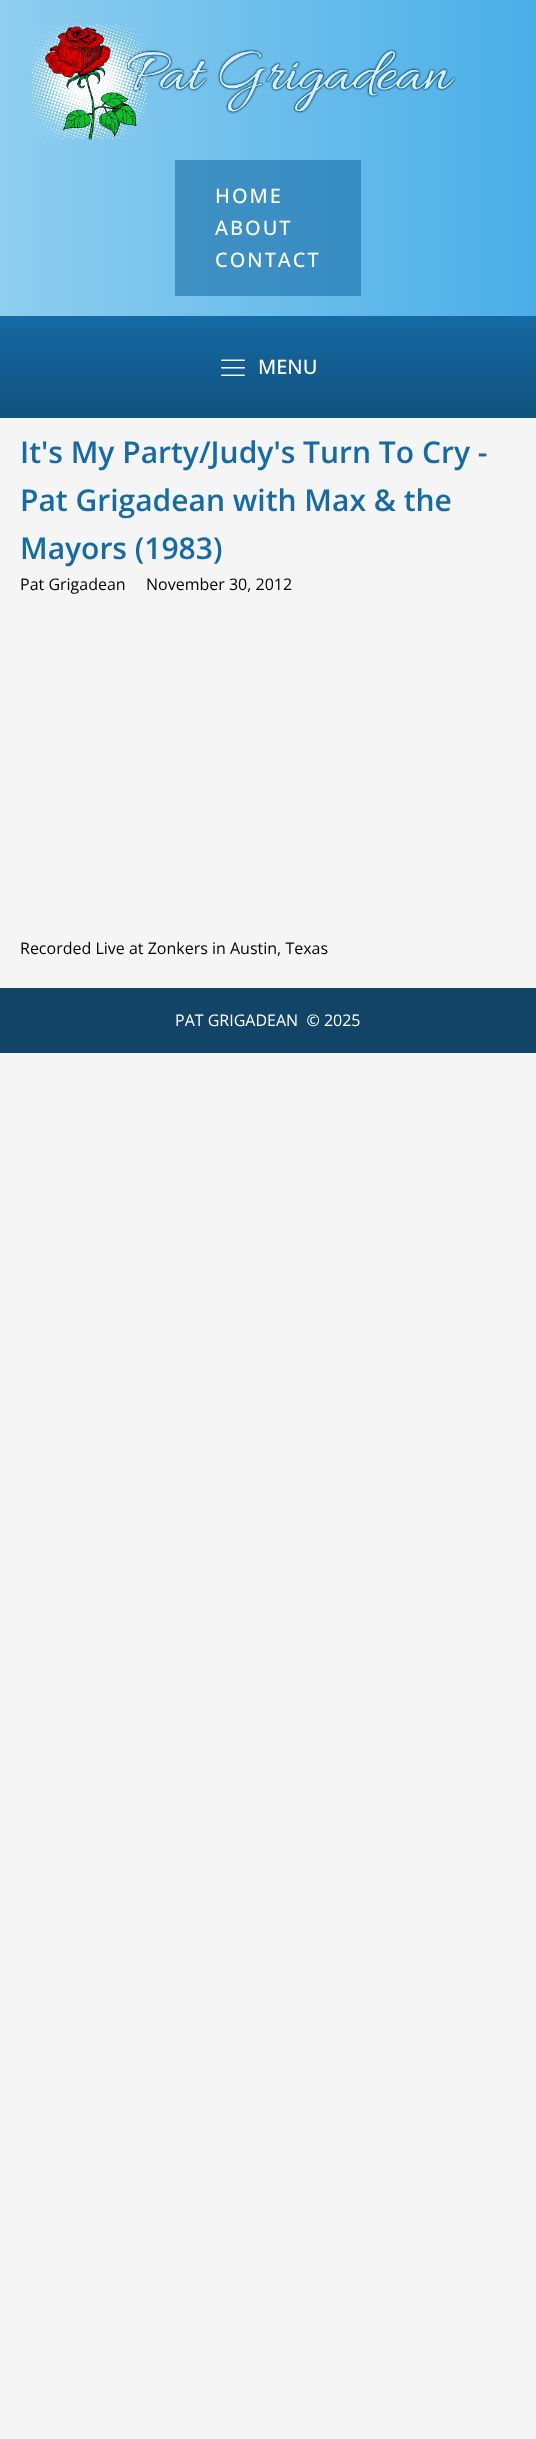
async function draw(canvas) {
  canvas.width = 536
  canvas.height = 2439
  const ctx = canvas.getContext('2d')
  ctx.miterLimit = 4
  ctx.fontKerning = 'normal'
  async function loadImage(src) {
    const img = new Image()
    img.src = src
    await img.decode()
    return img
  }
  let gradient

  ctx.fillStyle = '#f5f5f5'
  ctx.fillRect(0, 0, 536, 2439)
  gradient = ctx.createLinearGradient(0, 158, 536, 158)
  gradient.addColorStop(0, '#8fceef')
  gradient.addColorStop(1, '#4aafe7')
  ctx.fillStyle = gradient
  ctx.fillRect(0, 0, 536, 316)
  gradient = ctx.createLinearGradient(0, 158, 536, 158)
  gradient.addColorStop(0, '#4a95c5')
  gradient.addColorStop(1, '#2c88c1')
  ctx.fillStyle = gradient
  ctx.fillRect(175, 160, 186, 136)
  ctx.drawImage(await loadImage('image0.png'), 31, 23, 425, 117)
  ctx.letterSpacing = '2px'
  ctx.font = '500 20px Open Sans'
  ctx.fillStyle = '#fff'
  ctx.fillText('HOME', 215, 203)
  ctx.fillText('ABOUT', 215, 235)
  ctx.fillText('CONTACT', 215, 267)
  gradient = ctx.createLinearGradient(268, 316, 268, 418)
  gradient.addColorStop(0, '#166aa5')
  gradient.addColorStop(1, '#10517d')
  ctx.fillStyle = gradient
  ctx.fillRect(0, 316, 536, 102)
  ctx.drawImage(await loadImage('image1.png'), 221, 359, 24, 17)
  ctx.letterSpacing = '0px'
  ctx.fillStyle = '#fff'
  ctx.fillText('MENU', 258, 374)
  ctx.font = '600 30px Open Sans'
  ctx.fillStyle = '#166aa5'
  ctx.fillText('It\'s My Party/Judy\'s Turn To Cry -', 20, 463)
  ctx.fillText('Pat Grigadean with Max & the', 20, 511)
  ctx.fillText('Mayors (1983)', 20, 559)
  ctx.font = '16px Open Sans'
  ctx.fillStyle = '#000'
  ctx.fillText('Pat Grigadean', 20, 590)
  ctx.fillText('November 30, 2012', 146, 590)
  ctx.fillText('Recorded Live at Zonkers in Austin, Texas', 20, 954)
  ctx.fillStyle = '#124467'
  ctx.fillRect(0, 988, 536, 65)
  ctx.fillStyle = '#fff'
  ctx.fillText('PAT GRIGADEAN  © 2025', 175, 1026)
}

draw(document.querySelector('canvas'))
